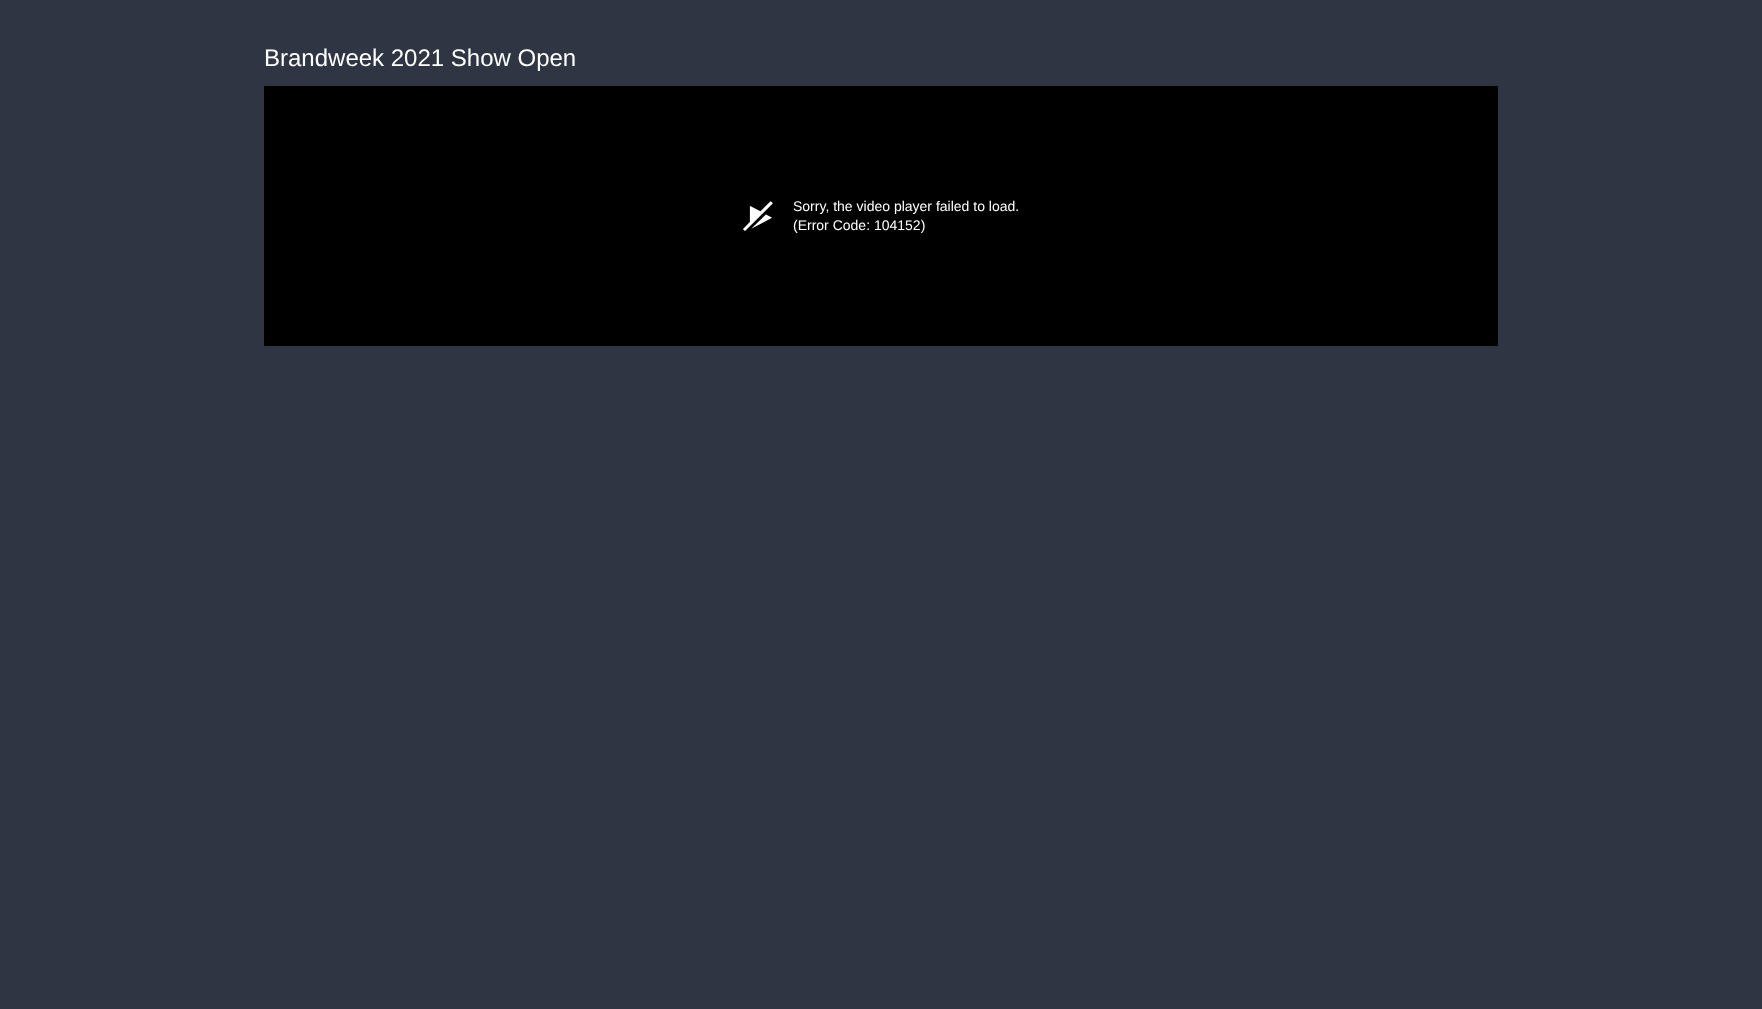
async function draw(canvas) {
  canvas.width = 1762
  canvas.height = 1009
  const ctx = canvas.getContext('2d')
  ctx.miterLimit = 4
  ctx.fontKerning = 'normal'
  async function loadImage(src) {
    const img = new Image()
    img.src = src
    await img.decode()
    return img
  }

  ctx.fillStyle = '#2f3542'
  ctx.fillRect(0, 0, 1762, 1009)
  ctx.font = '24px Liberation Sans'
  ctx.fillStyle = '#fff'
  ctx.fillText('Brandweek 2021 Show Open', 264, 66)
  ctx.fillStyle = '#000'
  ctx.fillRect(264, 86, 1234, 260)
  ctx.drawImage(await loadImage('image0.png'), 743, 201, 30, 30)
  ctx.font = '14px Liberation Sans'
  ctx.fillStyle = '#fff'
  ctx.fillText('Sorry, the video player failed to load.', 793, 211)
  ctx.fillText('(Error Code: 104152)', 793, 230)
}

draw(document.querySelector('canvas'))
